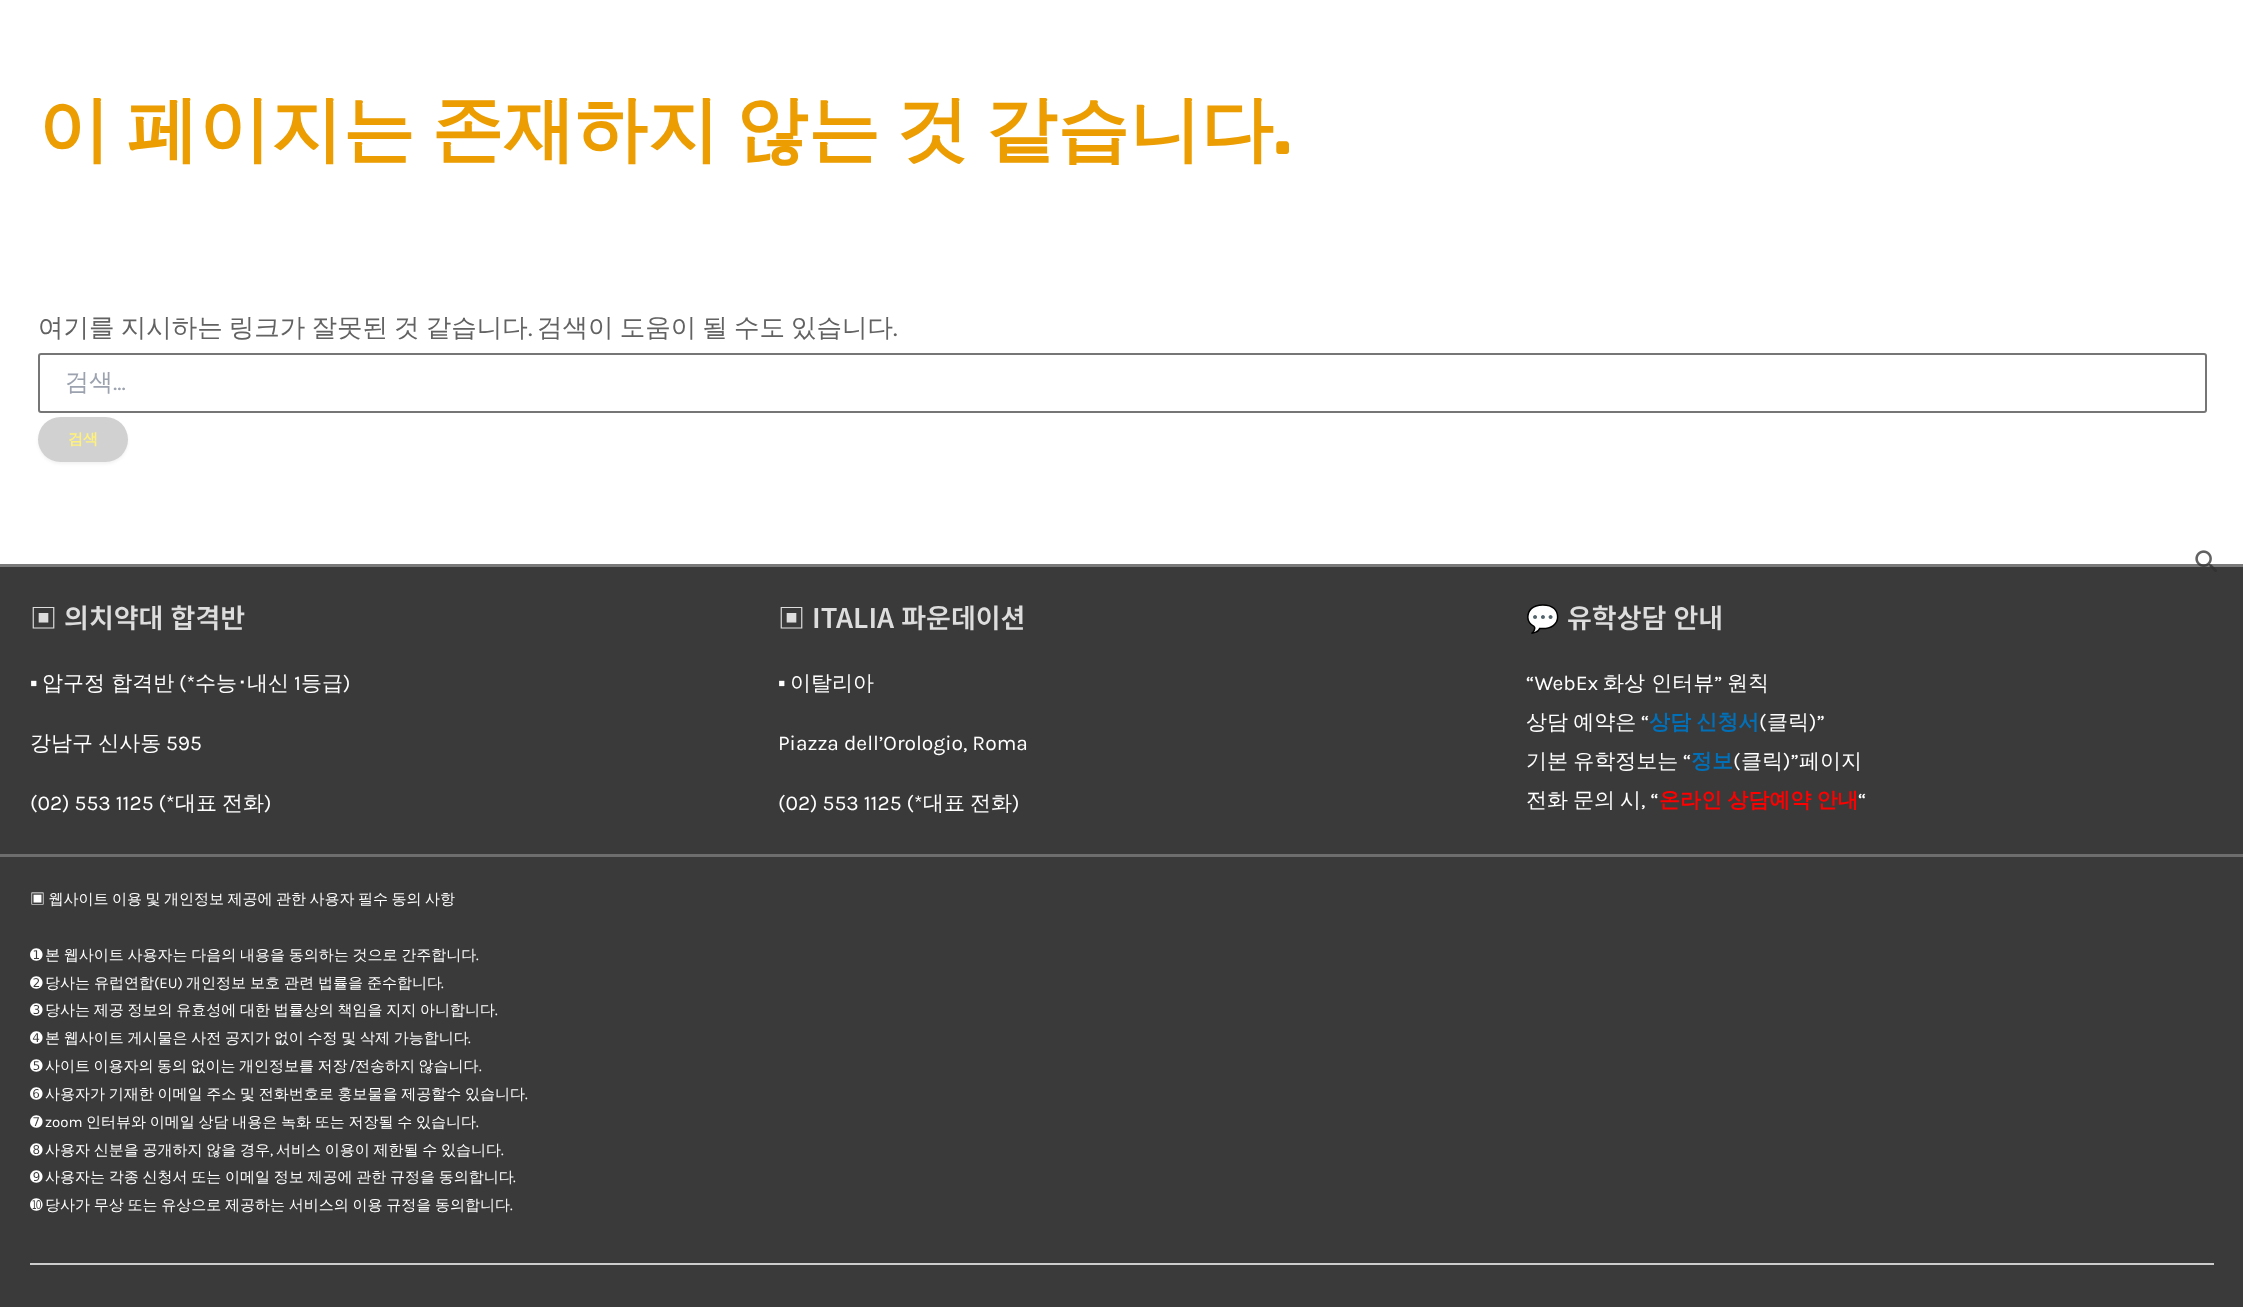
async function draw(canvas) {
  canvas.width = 2243
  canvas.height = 1307
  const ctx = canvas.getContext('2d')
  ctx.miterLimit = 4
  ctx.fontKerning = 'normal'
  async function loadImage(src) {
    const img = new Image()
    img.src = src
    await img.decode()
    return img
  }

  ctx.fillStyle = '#fff'
  ctx.fillRect(0, 0, 2243, 1307)
  ctx.wordSpacing = '-5px'
  ctx.font = 'bold 72px WenQuanYi Zen Hei'
  ctx.fillStyle = '#eb9d02'
  ctx.fillText('이 페이지는 존재하지 않는 것 같습니다', 38, 154)
  ctx.wordSpacing = '0px'
  ctx.font = 'bold 72px Rubik'
  ctx.fillText('.', 1272, 154)
  ctx.wordSpacing = '-1.5px'
  ctx.font = '500 25.5px WenQuanYi Zen Hei'
  ctx.fillStyle = '#626262'
  ctx.fillText('여기를 지시하는 링크가 잘못된 것 같습니다', 38, 336)
  ctx.wordSpacing = '0px'
  ctx.font = '25.5px Karla'
  ctx.fillText('.', 528, 336)
  ctx.wordSpacing = '-1.5px'
  ctx.font = '500 25.5px WenQuanYi Zen Hei'
  ctx.fillText('검색이 도움이 될 수도 있습니다', 537, 336)
  ctx.wordSpacing = '0px'
  ctx.font = '25.5px Karla'
  ctx.fillText('.', 893, 336)
  ctx.beginPath()
  ctx.roundRect(39, 354, 2167, 58, 2)
  ctx.strokeStyle = '#767676'
  ctx.lineWidth = 2
  ctx.stroke()
  ctx.font = '500 24px WenQuanYi Zen Hei'
  ctx.fillStyle = '#9ca3af'
  ctx.fillText('검색', 65, 390)
  ctx.font = '24px Karla'
  ctx.fillText('...', 113, 390)
  ctx.fillStyle = '#0000000d'
  ctx.filter = 'blur(1.5px)'
  ctx.beginPath()
  ctx.roundRect(38, 419, 90, 45, 22.5)
  ctx.fill()
  ctx.filter = 'none'
  ctx.fillStyle = '#d1d1d1'
  ctx.beginPath()
  ctx.roundRect(38, 417, 90, 45, 22.5)
  ctx.fill()
  ctx.font = 'bold 15px WenQuanYi Zen Hei'
  ctx.fillStyle = '#fff17a'
  ctx.fillText('검색', 68, 444)
  ctx.fillStyle = '#3a3a3a'
  ctx.fillRect(0, 567, 2243, 287)
  ctx.fillStyle = '#7a7a7a'
  ctx.fillRect(0, 564, 2243, 3)
  ctx.drawImage(await loadImage('image0.png'), 2195, 550, 22, 22)
  ctx.wordSpacing = '1px'
  ctx.font = '100 27px Noto Sans KR'
  ctx.fillStyle = '#ddd'
  ctx.fillText('▣ 의치약대 합격반', 30, 628)
  ctx.wordSpacing = '0px'
  ctx.font = '21px Liberation Sans'
  ctx.fillStyle = '#fff'
  ctx.fillText('▪︎', 30, 690)
  ctx.font = '500 21px WenQuanYi Zen Hei'
  ctx.fillText('압구정 합격반', 42, 690)
  ctx.font = '21px Karla'
  ctx.fillText('(*', 179, 690)
  ctx.font = '500 21px WenQuanYi Zen Hei'
  ctx.fillText('수능', 195, 690)
  ctx.font = '21px IPAGothic'
  ctx.fillText('･', 237, 690)
  ctx.font = '500 21px WenQuanYi Zen Hei'
  ctx.fillText('내신', 247, 690)
  ctx.font = '21px Karla'
  ctx.fillText('1', 294, 690)
  ctx.font = '500 21px WenQuanYi Zen Hei'
  ctx.fillText('등급', 301, 690)
  ctx.font = '21px Karla'
  ctx.fillText(')', 343, 690)
  ctx.wordSpacing = '-1px'
  ctx.font = '500 21px WenQuanYi Zen Hei'
  ctx.fillText('강남구 신사동', 30, 750)
  ctx.wordSpacing = '0px'
  ctx.font = '21px Karla'
  ctx.fillText('595', 166, 750)
  ctx.fillText('(02) 553 1125 (*', 30, 810)
  ctx.font = '500 21px WenQuanYi Zen Hei'
  ctx.fillText('대표', 175, 810)
  ctx.fillText('전화', 222, 810)
  ctx.font = '21px Karla'
  ctx.fillText(')', 264, 810)
  ctx.wordSpacing = '1px'
  ctx.font = '100 27px Noto Sans KR'
  ctx.fillStyle = '#ddd'
  ctx.fillText('▣ ITALIA 파운데이션', 778, 628)
  ctx.wordSpacing = '0px'
  ctx.font = '21px Liberation Sans'
  ctx.fillStyle = '#fff'
  ctx.fillText('▪︎', 778, 690)
  ctx.font = '500 21px WenQuanYi Zen Hei'
  ctx.fillText('이탈리아', 790, 690)
  ctx.font = '21px Karla'
  ctx.fillText('Piazza dell’Orologio, Roma', 778, 750)
  ctx.fillText('(02) 553 1125 (*', 778, 810)
  ctx.font = '500 21px WenQuanYi Zen Hei'
  ctx.fillText('대표', 923, 810)
  ctx.fillText('전화', 970, 810)
  ctx.font = '21px Karla'
  ctx.fillText(')', 1012, 810)
  ctx.font = 'bold 27px Noto Color Emoji'
  ctx.fillStyle = '#ddd'
  ctx.fillText('💬', 1526, 628)
  ctx.wordSpacing = '1px'
  ctx.font = '100 27px Noto Sans KR'
  ctx.fillText('유학상담 안내', 1567, 628)
  ctx.wordSpacing = '0px'
  ctx.font = '21px Karla'
  ctx.fillStyle = '#fff'
  ctx.fillText('“WebEx', 1526, 690)
  ctx.font = '500 21px WenQuanYi Zen Hei'
  ctx.fillText('화상 인터뷰', 1603, 690)
  ctx.font = '21px Karla'
  ctx.fillText('”', 1714, 690)
  ctx.font = '500 21px WenQuanYi Zen Hei'
  ctx.fillText('원칙', 1727, 690)
  ctx.wordSpacing = '-1px'
  ctx.fillText('상담 예약은', 1526, 729)
  ctx.wordSpacing = '0px'
  ctx.font = '21px Karla'
  ctx.fillText('“', 1641, 729)
  ctx.wordSpacing = '-1px'
  ctx.font = 'bold 21px WenQuanYi Zen Hei'
  ctx.fillStyle = '#0170b9'
  ctx.fillText('상담 신청서', 1649, 729)
  ctx.wordSpacing = '0px'
  ctx.font = '21px Karla'
  ctx.fillStyle = '#fff'
  ctx.fillText('(', 1759, 729)
  ctx.font = '500 21px WenQuanYi Zen Hei'
  ctx.fillText('클릭', 1767, 729)
  ctx.font = '21px Karla'
  ctx.fillText(')”', 1809, 729)
  ctx.wordSpacing = '-1px'
  ctx.font = '500 21px WenQuanYi Zen Hei'
  ctx.fillText('기본 유학정보는', 1526, 768)
  ctx.wordSpacing = '0px'
  ctx.font = '21px Karla'
  ctx.fillText('“', 1683, 768)
  ctx.font = 'bold 21px WenQuanYi Zen Hei'
  ctx.fillStyle = '#0170b9'
  ctx.fillText('정보', 1691, 768)
  ctx.font = '21px Karla'
  ctx.fillStyle = '#fff'
  ctx.fillText('(', 1733, 768)
  ctx.font = '500 21px WenQuanYi Zen Hei'
  ctx.fillText('클릭', 1741, 768)
  ctx.font = '21px Karla'
  ctx.fillText(')”', 1783, 768)
  ctx.font = '500 21px WenQuanYi Zen Hei'
  ctx.fillText('페이지', 1799, 768)
  ctx.fillText('전화', 1526, 807)
  ctx.fillText('문의', 1573, 807)
  ctx.fillText('시', 1620, 807)
  ctx.font = '21px Karla'
  ctx.fillText(', “', 1641, 807)
  ctx.wordSpacing = '-1px'
  ctx.font = 'bold 21px WenQuanYi Zen Hei'
  ctx.fillStyle = '#f00'
  ctx.fillText('온라인 상담예약 안내', 1659, 807)
  ctx.wordSpacing = '0px'
  ctx.font = '21px Karla'
  ctx.fillStyle = '#fff'
  ctx.fillText('“', 1858, 807)
  ctx.fillStyle = '#6d6d6d'
  ctx.fillRect(0, 854, 2243, 3)
  ctx.fillStyle = '#3a3a3a'
  ctx.fillRect(0, 857, 2243, 450)
  ctx.wordSpacing = '-1px'
  ctx.font = '500 15px WenQuanYi Zen Hei'
  ctx.fillStyle = '#fff'
  ctx.fillText('▣ 웹사이트 이용 및 개인정보 제공에 관한 사용자 필수 동의 사항', 30, 904)
  ctx.wordSpacing = '0px'
  ctx.font = '15px DejaVu Sans'
  ctx.fillText('➊', 30, 960)
  ctx.wordSpacing = '-0.75px'
  ctx.font = '500 15px WenQuanYi Zen Hei'
  ctx.fillText('본 웹사이트 사용자는 다음의 내용을 동의하는 것으로 간주합니다', 45, 960)
  ctx.wordSpacing = '0px'
  ctx.font = '15px Karla'
  ctx.fillText('.', 476, 960)
  ctx.font = '15px DejaVu Sans'
  ctx.fillText('➋', 30, 988)
  ctx.wordSpacing = '-0.5px'
  ctx.font = '500 15px WenQuanYi Zen Hei'
  ctx.fillText('당사는 유럽연합', 45, 988)
  ctx.wordSpacing = '0px'
  ctx.font = '15px Karla'
  ctx.fillText('(EU)', 154, 988)
  ctx.wordSpacing = '-0.5px'
  ctx.font = '500 15px WenQuanYi Zen Hei'
  ctx.fillText('개인정보 보호 관련 법률을 준수합니다', 186, 988)
  ctx.wordSpacing = '0px'
  ctx.font = '15px Karla'
  ctx.fillText('.', 441, 988)
  ctx.font = '15px DejaVu Sans'
  ctx.fillText('➌', 30, 1015)
  ctx.wordSpacing = '-0.75px'
  ctx.font = '500 15px WenQuanYi Zen Hei'
  ctx.fillText('당사는 제공 정보의 유효성에 대한 법률상의 책임을 지지 아니합니다', 45, 1015)
  ctx.wordSpacing = '0px'
  ctx.font = '15px Karla'
  ctx.fillText('.', 495, 1015)
  ctx.font = '15px DejaVu Sans'
  ctx.fillText('➍', 30, 1043)
  ctx.wordSpacing = '-0.75px'
  ctx.font = '500 15px WenQuanYi Zen Hei'
  ctx.fillText('본 웹사이트 게시물은 사전 공지가 없이 수정 및 삭제 가능합니다', 45, 1043)
  ctx.wordSpacing = '0px'
  ctx.font = '15px Karla'
  ctx.fillText('.', 468, 1043)
  ctx.font = '15px DejaVu Sans'
  ctx.fillText('➎', 30, 1071)
  ctx.wordSpacing = '-1px'
  ctx.font = '500 15px WenQuanYi Zen Hei'
  ctx.fillText('사이트 이용자의 동의 없이는 개인정보를 저장', 45, 1071)
  ctx.wordSpacing = '0px'
  ctx.font = '15px Karla'
  ctx.fillText('/', 349, 1071)
  ctx.wordSpacing = '-1px'
  ctx.font = '500 15px WenQuanYi Zen Hei'
  ctx.fillText('전송하지 않습니다', 355, 1071)
  ctx.wordSpacing = '0px'
  ctx.font = '15px Karla'
  ctx.fillText('.', 479, 1071)
  ctx.font = '15px DejaVu Sans'
  ctx.fillText('➏', 30, 1099)
  ctx.wordSpacing = '-0.75px'
  ctx.font = '500 15px WenQuanYi Zen Hei'
  ctx.fillText('사용자가 기재한 이메일 주소 및 전화번호로 홍보물을 제공할수 있습니다', 45, 1099)
  ctx.wordSpacing = '0px'
  ctx.font = '15px Karla'
  ctx.fillText('.', 525, 1099)
  ctx.font = '15px DejaVu Sans'
  ctx.fillText('➐', 30, 1127)
  ctx.font = '15px Karla'
  ctx.fillText('zoom', 45, 1127)
  ctx.wordSpacing = '-0.75px'
  ctx.font = '500 15px WenQuanYi Zen Hei'
  ctx.fillText('인터뷰와 이메일 상담 내용은 녹화 또는 저장될 수 있습니다', 86, 1127)
  ctx.wordSpacing = '0px'
  ctx.font = '15px Karla'
  ctx.fillText('.', 476, 1127)
  ctx.font = '15px DejaVu Sans'
  ctx.fillText('➑', 30, 1155)
  ctx.wordSpacing = '-0.75px'
  ctx.font = '500 15px WenQuanYi Zen Hei'
  ctx.fillText('사용자 신분을 공개하지 않을 경우', 45, 1155)
  ctx.wordSpacing = '0px'
  ctx.font = '15px Karla'
  ctx.fillText(',', 270, 1155)
  ctx.wordSpacing = '-0.75px'
  ctx.font = '500 15px WenQuanYi Zen Hei'
  ctx.fillText('서비스 이용이 제한될 수 있습니다', 276, 1155)
  ctx.wordSpacing = '0px'
  ctx.font = '15px Karla'
  ctx.fillText('.', 501, 1155)
  ctx.font = '15px DejaVu Sans'
  ctx.fillText('➒', 30, 1182)
  ctx.wordSpacing = '-0.75px'
  ctx.font = '500 15px WenQuanYi Zen Hei'
  ctx.fillText('사용자는 각종 신청서 또는 이메일 정보 제공에 관한 규정을 동의합니다', 45, 1182)
  ctx.wordSpacing = '0px'
  ctx.font = '15px Karla'
  ctx.fillText('.', 513, 1182)
  ctx.font = '15px DejaVu Sans'
  ctx.fillText('➓', 30, 1210)
  ctx.wordSpacing = '-0.75px'
  ctx.font = '500 15px WenQuanYi Zen Hei'
  ctx.fillText('당사가 무상 또는 유상으로 제공하는 서비스의 이용 규정을 동의합니다', 45, 1210)
  ctx.wordSpacing = '0px'
  ctx.font = '15px Karla'
  ctx.fillText('.', 510, 1210)
  ctx.fillStyle = '#ccc'
  ctx.fillRect(30, 1263, 2184, 2)
}

draw(document.querySelector('canvas'))
